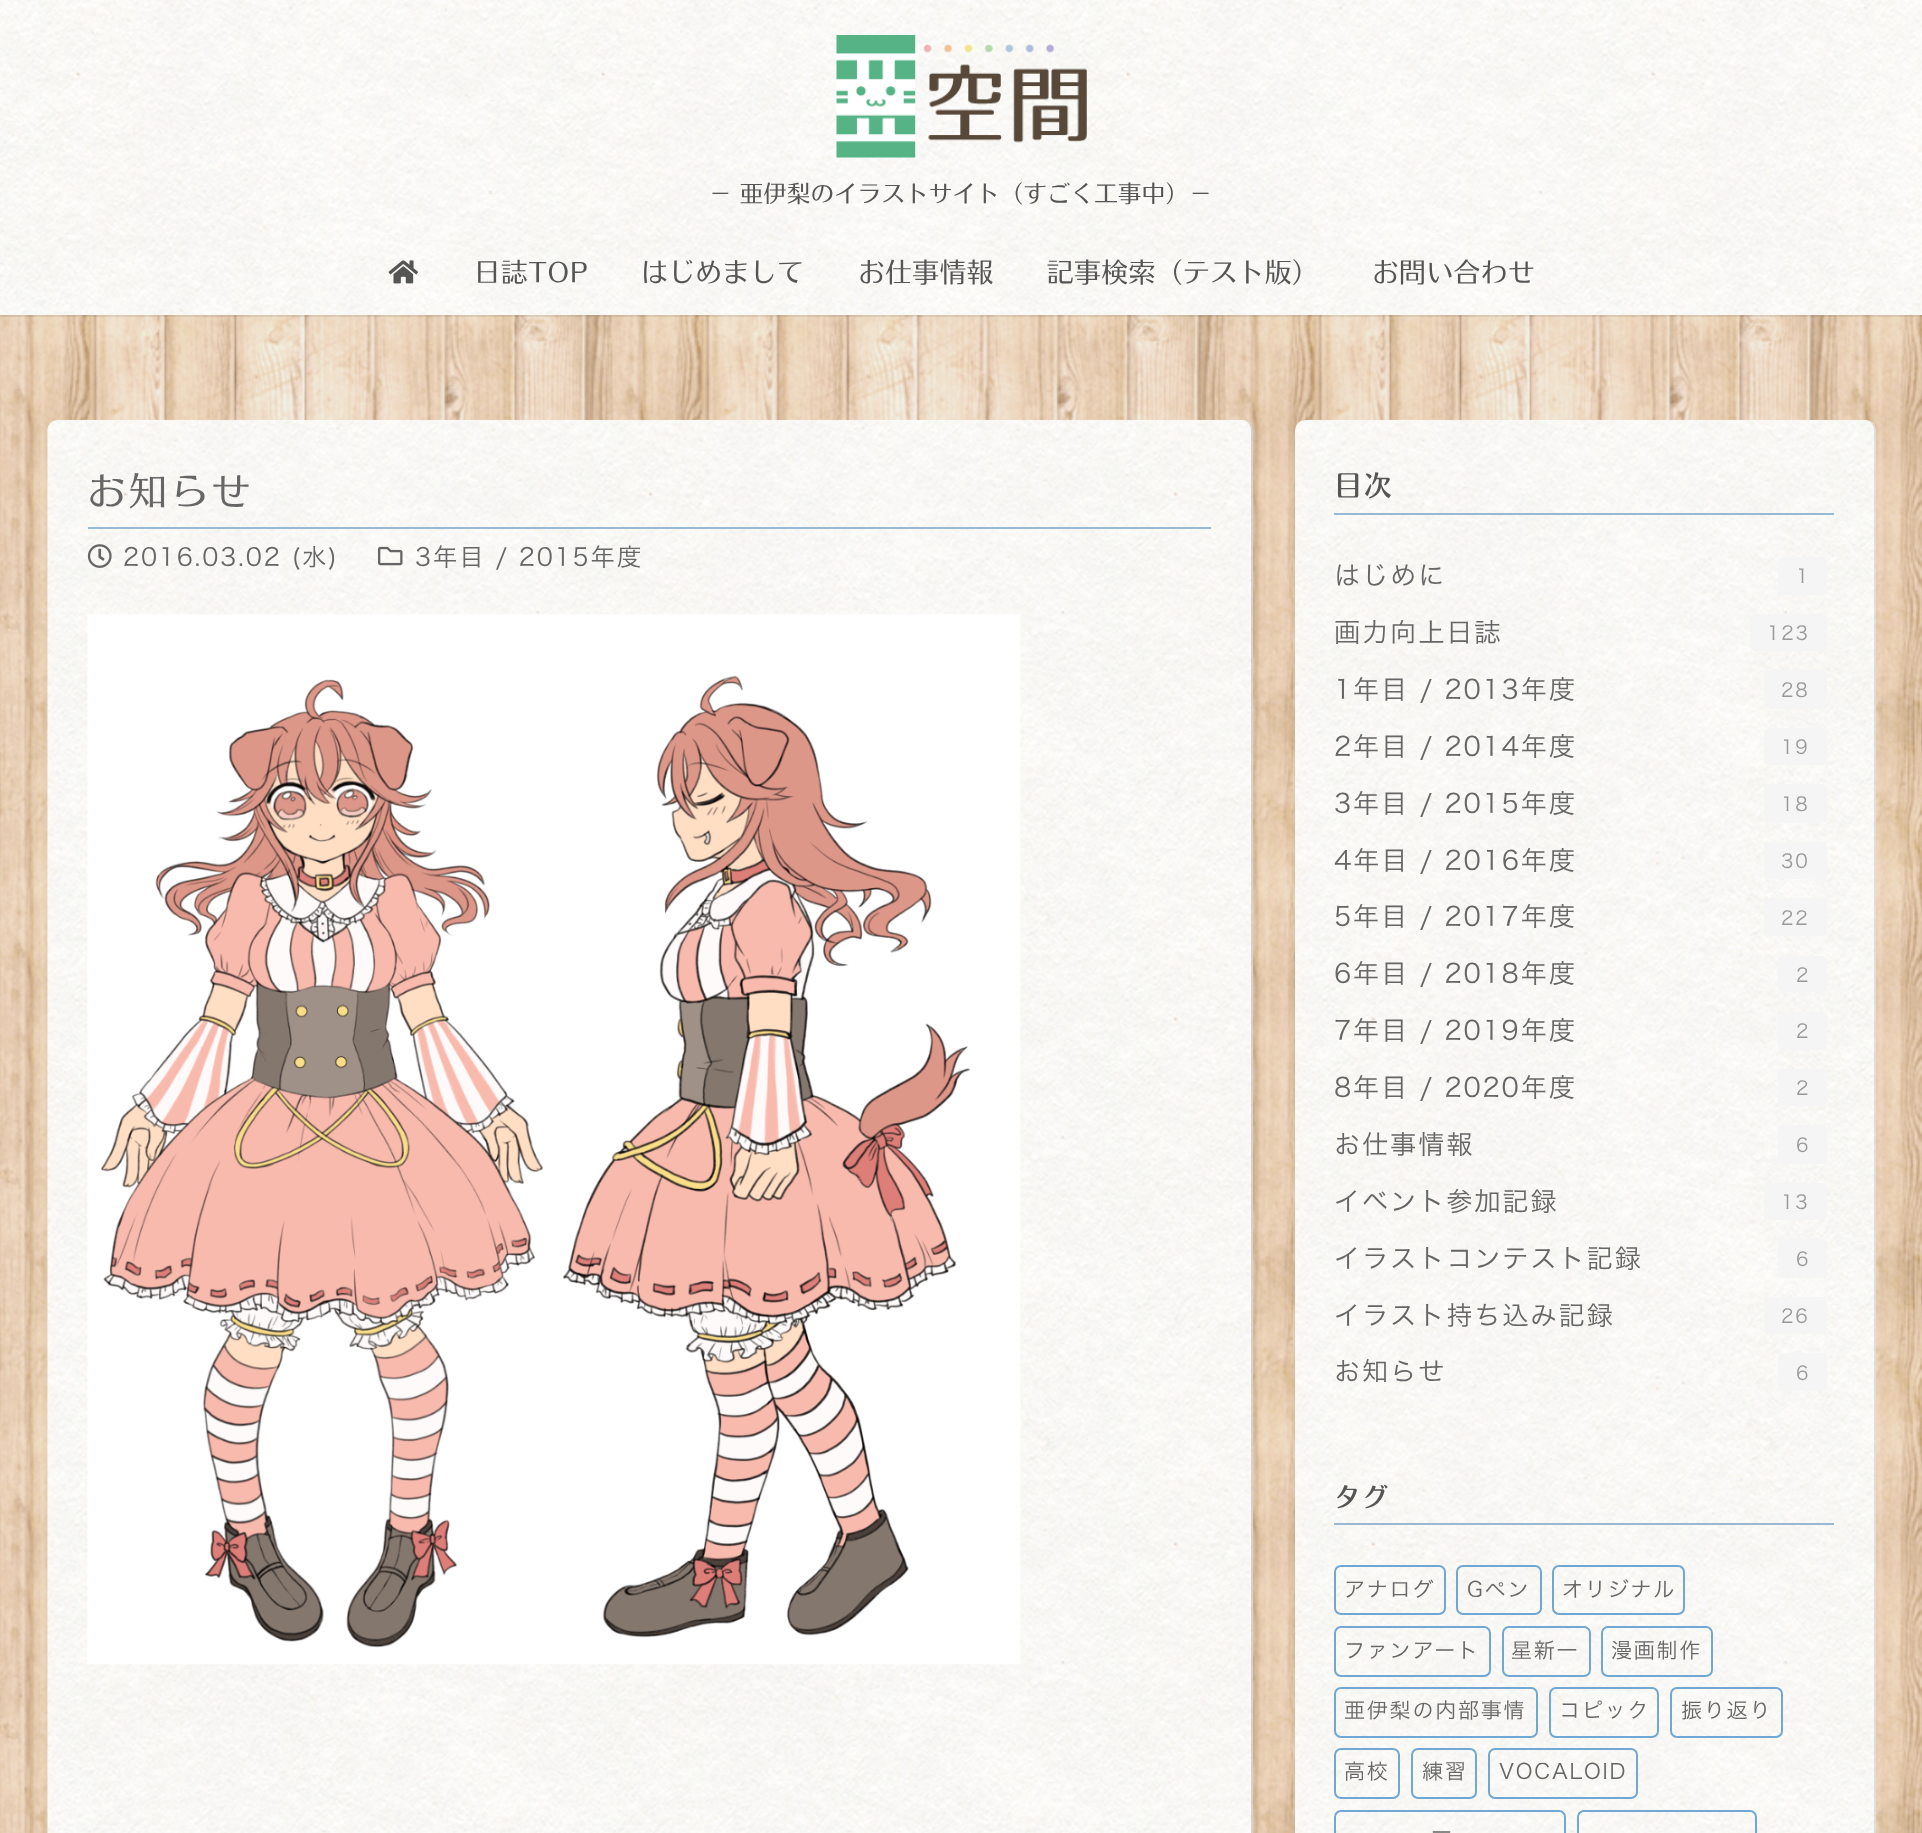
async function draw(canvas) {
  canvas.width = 1922
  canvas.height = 1833
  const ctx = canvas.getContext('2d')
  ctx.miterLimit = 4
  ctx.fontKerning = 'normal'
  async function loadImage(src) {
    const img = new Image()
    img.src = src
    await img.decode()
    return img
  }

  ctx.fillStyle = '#fff'
  ctx.fillRect(0, 0, 1922, 1833)
  ctx.drawImage(await loadImage('image3.png'), 0, 315, 1922, 1518)
  ctx.fillStyle = '#00000014'
  ctx.fillRect(0, 315, 1922, 2)
  ctx.drawImage(await loadImage('image0.png'), 0, 0, 1922, 315)
  ctx.drawImage(await loadImage('image1.png'), 836, 35, 251, 123)
  ctx.letterSpacing = '0.9px'
  ctx.font = '22.75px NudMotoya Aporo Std'
  ctx.fillStyle = '#555'
  ctx.fillText('－ 亜伊梨のイラストサイト（すごく工事中）－', 709, 202)
  ctx.drawImage(await loadImage('image2.png'), 388, 260, 30, 24)
  ctx.letterSpacing = '1px'
  ctx.font = '26.25px NudMotoya Aporo Std'
  ctx.fillText('日誌TOP', 474, 282)
  ctx.fillText('はじめまして', 641, 282)
  ctx.fillText('お仕事情報', 858, 282)
  ctx.fillText('記事検索（テスト版）', 1047, 282)
  ctx.fillText('お問い合わせ', 1372, 282)
  ctx.drawImage(await loadImage('image4.png'), 47, 420, 1206, 1413)
  ctx.fillStyle = '#00000026'
  ctx.beginPath()
  ctx.moveTo(58, 420)
  ctx.lineTo(1242, 420)
  ctx.bezierCurveTo(1248, 420, 1253, 425, 1253, 430)
  ctx.lineTo(1253, 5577)
  ctx.bezierCurveTo(1253, 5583, 1248, 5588, 1242, 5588)
  ctx.lineTo(58, 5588)
  ctx.bezierCurveTo(52, 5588, 47, 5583, 47, 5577)
  ctx.lineTo(47, 430)
  ctx.bezierCurveTo(47, 425, 52, 420, 58, 420)
  ctx.closePath()
  ctx.moveTo(58, 420)
  ctx.lineTo(1242, 420)
  ctx.bezierCurveTo(1247, 420, 1251, 425, 1251, 430)
  ctx.lineTo(1251, 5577)
  ctx.bezierCurveTo(1251, 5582, 1247, 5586, 1242, 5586)
  ctx.lineTo(58, 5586)
  ctx.bezierCurveTo(52, 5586, 47, 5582, 47, 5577)
  ctx.lineTo(47, 430)
  ctx.bezierCurveTo(47, 425, 52, 420, 58, 420)
  ctx.closePath()
  ctx.fill('evenodd')
  ctx.fillStyle = '#98b9d4'
  ctx.fillRect(88, 527, 1123, 2)
  ctx.letterSpacing = '3px'
  ctx.font = '500 38.5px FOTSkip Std'
  ctx.fillStyle = '#666'
  ctx.fillText('お知らせ', 87, 505)
  ctx.drawImage(await loadImage('image5.png'), 87, 544, 25, 24)
  ctx.letterSpacing = '1.8px'
  ctx.font = '300 24.5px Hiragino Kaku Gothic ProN'
  ctx.fillText('2016.03.02 (水)', 123, 566)
  ctx.drawImage(await loadImage('image6.png'), 378, 546, 25, 20)
  ctx.fillText('3年目 / 2015年度', 415, 566)
  ctx.drawImage(await loadImage('image7.png'), 87, 614, 934, 1051)
  ctx.drawImage(await loadImage('image8.png'), 1295, 420, 581, 1413)
  ctx.fillStyle = '#0000001a'
  ctx.beginPath()
  ctx.moveTo(1306, 420)
  ctx.lineTo(1866, 420)
  ctx.bezierCurveTo(1871, 420, 1876, 425, 1876, 430)
  ctx.lineTo(1876, 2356)
  ctx.bezierCurveTo(1876, 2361, 1871, 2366, 1866, 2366)
  ctx.lineTo(1306, 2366)
  ctx.bezierCurveTo(1300, 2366, 1295, 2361, 1295, 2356)
  ctx.lineTo(1295, 430)
  ctx.bezierCurveTo(1295, 425, 1300, 420, 1306, 420)
  ctx.closePath()
  ctx.moveTo(1306, 420)
  ctx.lineTo(1866, 420)
  ctx.bezierCurveTo(1870, 420, 1874, 425, 1874, 430)
  ctx.lineTo(1874, 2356)
  ctx.bezierCurveTo(1874, 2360, 1870, 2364, 1866, 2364)
  ctx.lineTo(1306, 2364)
  ctx.bezierCurveTo(1300, 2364, 1295, 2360, 1295, 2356)
  ctx.lineTo(1295, 430)
  ctx.bezierCurveTo(1295, 425, 1300, 420, 1306, 420)
  ctx.closePath()
  ctx.fill('evenodd')
  ctx.fillStyle = '#98b9d4'
  ctx.fillRect(1334, 513, 500, 2)
  ctx.font = '500 28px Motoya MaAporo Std'
  ctx.fillStyle = '#555'
  ctx.fillText('目次', 1334, 496)
  ctx.font = '300 26.25px Hiragino Kaku Gothic ProN'
  ctx.fillStyle = '#666'
  ctx.fillText('はじめに', 1334, 585)
  ctx.fillStyle = '#f5f5f5'
  ctx.beginPath()
  ctx.roundRect(1778, 557, 49, 38, 5)
  ctx.fill()
  ctx.font = '300 19px Hiragino Kaku Gothic ProN'
  ctx.fillStyle = '#999'
  ctx.fillText('1', 1796, 583)
  ctx.font = '300 26.25px Hiragino Kaku Gothic ProN'
  ctx.fillStyle = '#666'
  ctx.fillText('画力向上日誌', 1334, 642)
  ctx.fillStyle = '#f5f5f5'
  ctx.beginPath()
  ctx.roundRect(1750, 614, 77, 37, 5)
  ctx.fill()
  ctx.font = '300 19px Hiragino Kaku Gothic ProN'
  ctx.fillStyle = '#999'
  ctx.fillText('123', 1767, 640)
  ctx.font = '300 26.25px Hiragino Kaku Gothic ProN'
  ctx.fillStyle = '#666'
  ctx.fillText('1年目 / 2013年度', 1334, 699)
  ctx.fillStyle = '#f5f5f5'
  ctx.beginPath()
  ctx.roundRect(1764, 670, 63, 39, 5)
  ctx.fill()
  ctx.font = '300 19px Hiragino Kaku Gothic ProN'
  ctx.fillStyle = '#999'
  ctx.fillText('28', 1781, 697)
  ctx.font = '300 26.25px Hiragino Kaku Gothic ProN'
  ctx.fillStyle = '#666'
  ctx.fillText('2年目 / 2014年度', 1334, 756)
  ctx.fillStyle = '#f5f5f5'
  ctx.beginPath()
  ctx.roundRect(1764, 728, 63, 37, 5)
  ctx.fill()
  ctx.font = '300 19px Hiragino Kaku Gothic ProN'
  ctx.fillStyle = '#999'
  ctx.fillText('19', 1781, 754)
  ctx.font = '300 26.25px Hiragino Kaku Gothic ProN'
  ctx.fillStyle = '#666'
  ctx.fillText('3年目 / 2015年度', 1334, 813)
  ctx.fillStyle = '#f5f5f5'
  ctx.beginPath()
  ctx.roundRect(1764, 784, 63, 39, 5)
  ctx.fill()
  ctx.font = '300 19px Hiragino Kaku Gothic ProN'
  ctx.fillStyle = '#999'
  ctx.fillText('18', 1781, 811)
  ctx.font = '300 26.25px Hiragino Kaku Gothic ProN'
  ctx.fillStyle = '#666'
  ctx.fillText('4年目 / 2016年度', 1334, 870)
  ctx.fillStyle = '#f5f5f5'
  ctx.beginPath()
  ctx.roundRect(1764, 842, 63, 37, 5)
  ctx.fill()
  ctx.font = '300 19px Hiragino Kaku Gothic ProN'
  ctx.fillStyle = '#999'
  ctx.fillText('30', 1781, 868)
  ctx.font = '300 26.25px Hiragino Kaku Gothic ProN'
  ctx.fillStyle = '#666'
  ctx.fillText('5年目 / 2017年度', 1334, 926)
  ctx.fillStyle = '#f5f5f5'
  ctx.beginPath()
  ctx.roundRect(1764, 898, 63, 38, 5)
  ctx.fill()
  ctx.font = '300 19px Hiragino Kaku Gothic ProN'
  ctx.fillStyle = '#999'
  ctx.fillText('22', 1781, 925)
  ctx.font = '300 26.25px Hiragino Kaku Gothic ProN'
  ctx.fillStyle = '#666'
  ctx.fillText('6年目 / 2018年度', 1334, 983)
  ctx.fillStyle = '#f5f5f5'
  ctx.beginPath()
  ctx.roundRect(1778, 956, 49, 36, 5)
  ctx.fill()
  ctx.font = '300 19px Hiragino Kaku Gothic ProN'
  ctx.fillStyle = '#999'
  ctx.fillText('2', 1796, 982)
  ctx.font = '300 26.25px Hiragino Kaku Gothic ProN'
  ctx.fillStyle = '#666'
  ctx.fillText('7年目 / 2019年度', 1334, 1040)
  ctx.fillStyle = '#f5f5f5'
  ctx.beginPath()
  ctx.roundRect(1778, 1012, 49, 38, 5)
  ctx.fill()
  ctx.font = '300 19px Hiragino Kaku Gothic ProN'
  ctx.fillStyle = '#999'
  ctx.fillText('2', 1796, 1038)
  ctx.font = '300 26.25px Hiragino Kaku Gothic ProN'
  ctx.fillStyle = '#666'
  ctx.fillText('8年目 / 2020年度', 1334, 1097)
  ctx.fillStyle = '#f5f5f5'
  ctx.beginPath()
  ctx.roundRect(1778, 1069, 49, 37, 5)
  ctx.fill()
  ctx.font = '300 19px Hiragino Kaku Gothic ProN'
  ctx.fillStyle = '#999'
  ctx.fillText('2', 1796, 1095)
  ctx.font = '300 26.25px Hiragino Kaku Gothic ProN'
  ctx.fillStyle = '#666'
  ctx.fillText('お仕事情報', 1334, 1154)
  ctx.fillStyle = '#f5f5f5'
  ctx.beginPath()
  ctx.roundRect(1778, 1125, 49, 39, 5)
  ctx.fill()
  ctx.font = '300 19px Hiragino Kaku Gothic ProN'
  ctx.fillStyle = '#999'
  ctx.fillText('6', 1796, 1152)
  ctx.font = '300 26.25px Hiragino Kaku Gothic ProN'
  ctx.fillStyle = '#666'
  ctx.fillText('イベント参加記録', 1334, 1211)
  ctx.fillStyle = '#f5f5f5'
  ctx.beginPath()
  ctx.roundRect(1764, 1183, 63, 37, 5)
  ctx.fill()
  ctx.font = '300 19px Hiragino Kaku Gothic ProN'
  ctx.fillStyle = '#999'
  ctx.fillText('13', 1781, 1209)
  ctx.font = '300 26.25px Hiragino Kaku Gothic ProN'
  ctx.fillStyle = '#666'
  ctx.fillText('イラストコンテスト記録', 1334, 1268)
  ctx.fillStyle = '#f5f5f5'
  ctx.beginPath()
  ctx.roundRect(1778, 1239, 49, 39, 5)
  ctx.fill()
  ctx.font = '300 19px Hiragino Kaku Gothic ProN'
  ctx.fillStyle = '#999'
  ctx.fillText('6', 1796, 1266)
  ctx.font = '300 26.25px Hiragino Kaku Gothic ProN'
  ctx.fillStyle = '#666'
  ctx.fillText('イラスト持ち込み記録', 1334, 1325)
  ctx.fillStyle = '#f5f5f5'
  ctx.beginPath()
  ctx.roundRect(1764, 1297, 63, 37, 5)
  ctx.fill()
  ctx.font = '300 19px Hiragino Kaku Gothic ProN'
  ctx.fillStyle = '#999'
  ctx.fillText('26', 1781, 1323)
  ctx.font = '300 26.25px Hiragino Kaku Gothic ProN'
  ctx.fillStyle = '#666'
  ctx.fillText('お知らせ', 1334, 1381)
  ctx.fillStyle = '#f5f5f5'
  ctx.beginPath()
  ctx.roundRect(1778, 1353, 49, 38, 5)
  ctx.fill()
  ctx.font = '300 19px Hiragino Kaku Gothic ProN'
  ctx.fillStyle = '#999'
  ctx.fillText('6', 1796, 1380)
  ctx.fillStyle = '#98b9d4'
  ctx.fillRect(1334, 1523, 500, 2)
  ctx.font = '500 26.25px Motoya MaAporo Std'
  ctx.fillStyle = '#555'
  ctx.fillText('タグ', 1334, 1507)
  ctx.beginPath()
  ctx.roundRect(1335, 1566, 110, 48, 6)
  ctx.strokeStyle = '#71a7d3'
  ctx.lineWidth = 2
  ctx.stroke()
  ctx.font = '300 21px Hiragino Kaku Gothic ProN'
  ctx.fillStyle = '#666'
  ctx.fillText('アナログ', 1344, 1597)
  ctx.beginPath()
  ctx.roundRect(1457, 1566, 84, 48, 6)
  ctx.stroke()
  ctx.fillText('Gペン', 1467, 1597)
  ctx.beginPath()
  ctx.roundRect(1553, 1566, 131, 48, 6)
  ctx.stroke()
  ctx.fillText('オリジナル', 1562, 1597)
  ctx.beginPath()
  ctx.roundRect(1335, 1627, 155, 49, 6)
  ctx.stroke()
  ctx.fillText('ファンアート', 1344, 1658)
  ctx.beginPath()
  ctx.roundRect(1503, 1627, 87, 49, 6)
  ctx.stroke()
  ctx.fillText('星新一', 1511, 1658)
  ctx.beginPath()
  ctx.roundRect(1602, 1627, 110, 49, 6)
  ctx.stroke()
  ctx.fillText('漫画制作', 1611, 1658)
  ctx.beginPath()
  ctx.roundRect(1335, 1688, 202, 49, 6)
  ctx.stroke()
  ctx.fillText('亜伊梨の内部事情', 1344, 1718)
  ctx.beginPath()
  ctx.roundRect(1550, 1688, 108, 49, 6)
  ctx.stroke()
  ctx.fillText('コピック', 1559, 1718)
  ctx.beginPath()
  ctx.roundRect(1671, 1688, 111, 49, 6)
  ctx.stroke()
  ctx.fillText('振り返り', 1681, 1718)
  ctx.beginPath()
  ctx.roundRect(1335, 1749, 64, 49, 6)
  ctx.stroke()
  ctx.fillText('高校', 1344, 1779)
  ctx.beginPath()
  ctx.roundRect(1412, 1749, 64, 49, 6)
  ctx.stroke()
  ctx.fillText('練習', 1422, 1779)
  ctx.beginPath()
  ctx.roundRect(1489, 1749, 148, 49, 6)
  ctx.stroke()
  ctx.fillText('VOCALOID', 1499, 1779)
  ctx.beginPath()
  ctx.roundRect(1335, 1811, 230, 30, 6)
  ctx.stroke()
  ctx.fillText('ー', 1431, 1840)
  ctx.beginPath()
  ctx.roundRect(1578, 1811, 178, 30, 6)
  ctx.stroke()
}

draw(document.querySelector('canvas'))
